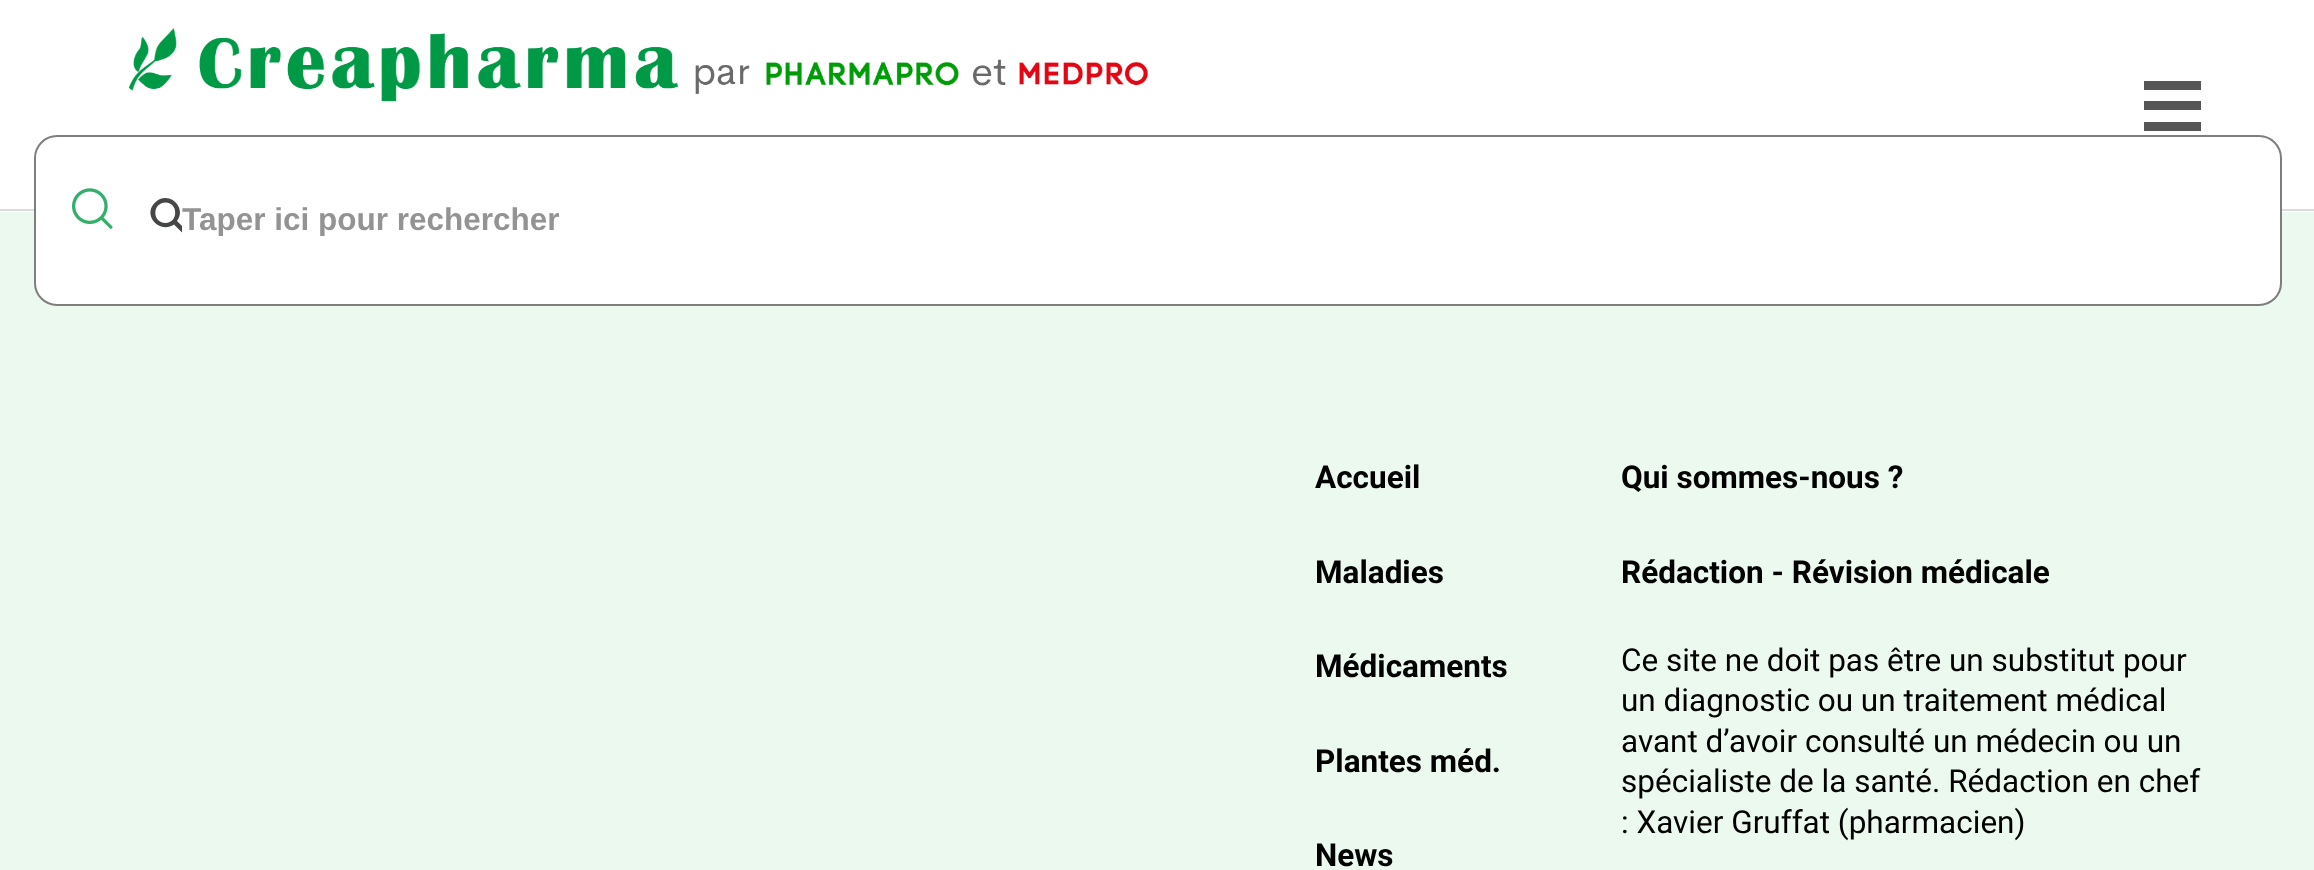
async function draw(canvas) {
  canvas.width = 2314
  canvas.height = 870
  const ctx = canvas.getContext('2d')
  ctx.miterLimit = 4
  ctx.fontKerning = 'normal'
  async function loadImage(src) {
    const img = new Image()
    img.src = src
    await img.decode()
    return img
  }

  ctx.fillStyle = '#ebf9ef'
  ctx.fillRect(0, 0, 2314, 870)
  ctx.fillStyle = '#fff'
  ctx.fillRect(0, 0, 2314, 212)
  ctx.fillStyle = '#dcdbdb'
  ctx.fillRect(0, 209, 2314, 2)
  ctx.drawImage(await loadImage('image0.png'), 128, 28, 1020, 74)
  ctx.fillStyle = '#555'
  ctx.fillRect(2144, 81, 57, 9)
  ctx.fillRect(2144, 101, 57, 9)
  ctx.fillRect(2144, 122, 57, 9)
  ctx.fillStyle = '#fff'
  ctx.beginPath()
  ctx.roundRect(35, 136, 2246, 169, 22)
  ctx.fill()
  ctx.strokeStyle = '#7e7e7e'
  ctx.lineWidth = 2
  ctx.stroke()
  ctx.drawImage(await loadImage('image1.png'), 72, 188, 41, 41)
  ctx.fillStyle = '#444746'
  ctx.beginPath()
  ctx.moveTo(177, 221)
  ctx.lineTo(190, 234)
  ctx.lineTo(187, 237.5)
  ctx.lineTo(174, 224.5)
  ctx.bezierCurveTo(159.5, 234.5, 142, 215, 155, 202.5)
  ctx.bezierCurveTo(168, 189.5, 187.5, 207, 177, 221)
  ctx.closePath()
  ctx.moveTo(165.5, 202.5)
  ctx.bezierCurveTo(152, 202.5, 152, 223, 165.5, 223)
  ctx.bezierCurveTo(178.5, 223, 178.5, 202.5, 165.5, 202.5)
  ctx.closePath()
  ctx.fill('evenodd')
  ctx.fillStyle = '#fff'
  ctx.fillRect(182, 226, 8, 12)
  ctx.save()
  ctx.beginPath()
  ctx.rect(182, 200, 1227, 36)
  ctx.clip()
  ctx.font = 'bold 31.5px Liberation Sans'
  ctx.fillStyle = '#939393'
  ctx.fillText('Taper ici pour rechercher', 182, 230)
  ctx.restore()
  ctx.font = 'bold 31.5px Roboto'
  ctx.fillStyle = '#000'
  ctx.fillText('Accueil', 1315, 488)
  ctx.fillText('Maladies', 1315, 583)
  ctx.fillText('Médicaments', 1315, 677)
  ctx.fillText('Plantes méd.', 1315, 772)
  ctx.fillText('News', 1315, 866)
  ctx.fillText('Qui sommes-nous ?', 1621, 488)
  ctx.fillText('Rédaction - Révision médicale', 1621, 583)
  ctx.font = '31.5px Roboto'
  ctx.fillText('Ce site ne doit pas être un substitut pour', 1621, 671)
  ctx.fillText('un diagnostic ou un traitement médical', 1621, 711)
  ctx.fillText('avant d’avoir consulté un médecin ou un', 1621, 752)
  ctx.fillText('spécialiste de la santé. Rédaction en chef', 1621, 792)
  ctx.fillText(': Xavier Gruffat (pharmacien)', 1621, 833)
}

draw(document.querySelector('canvas'))
